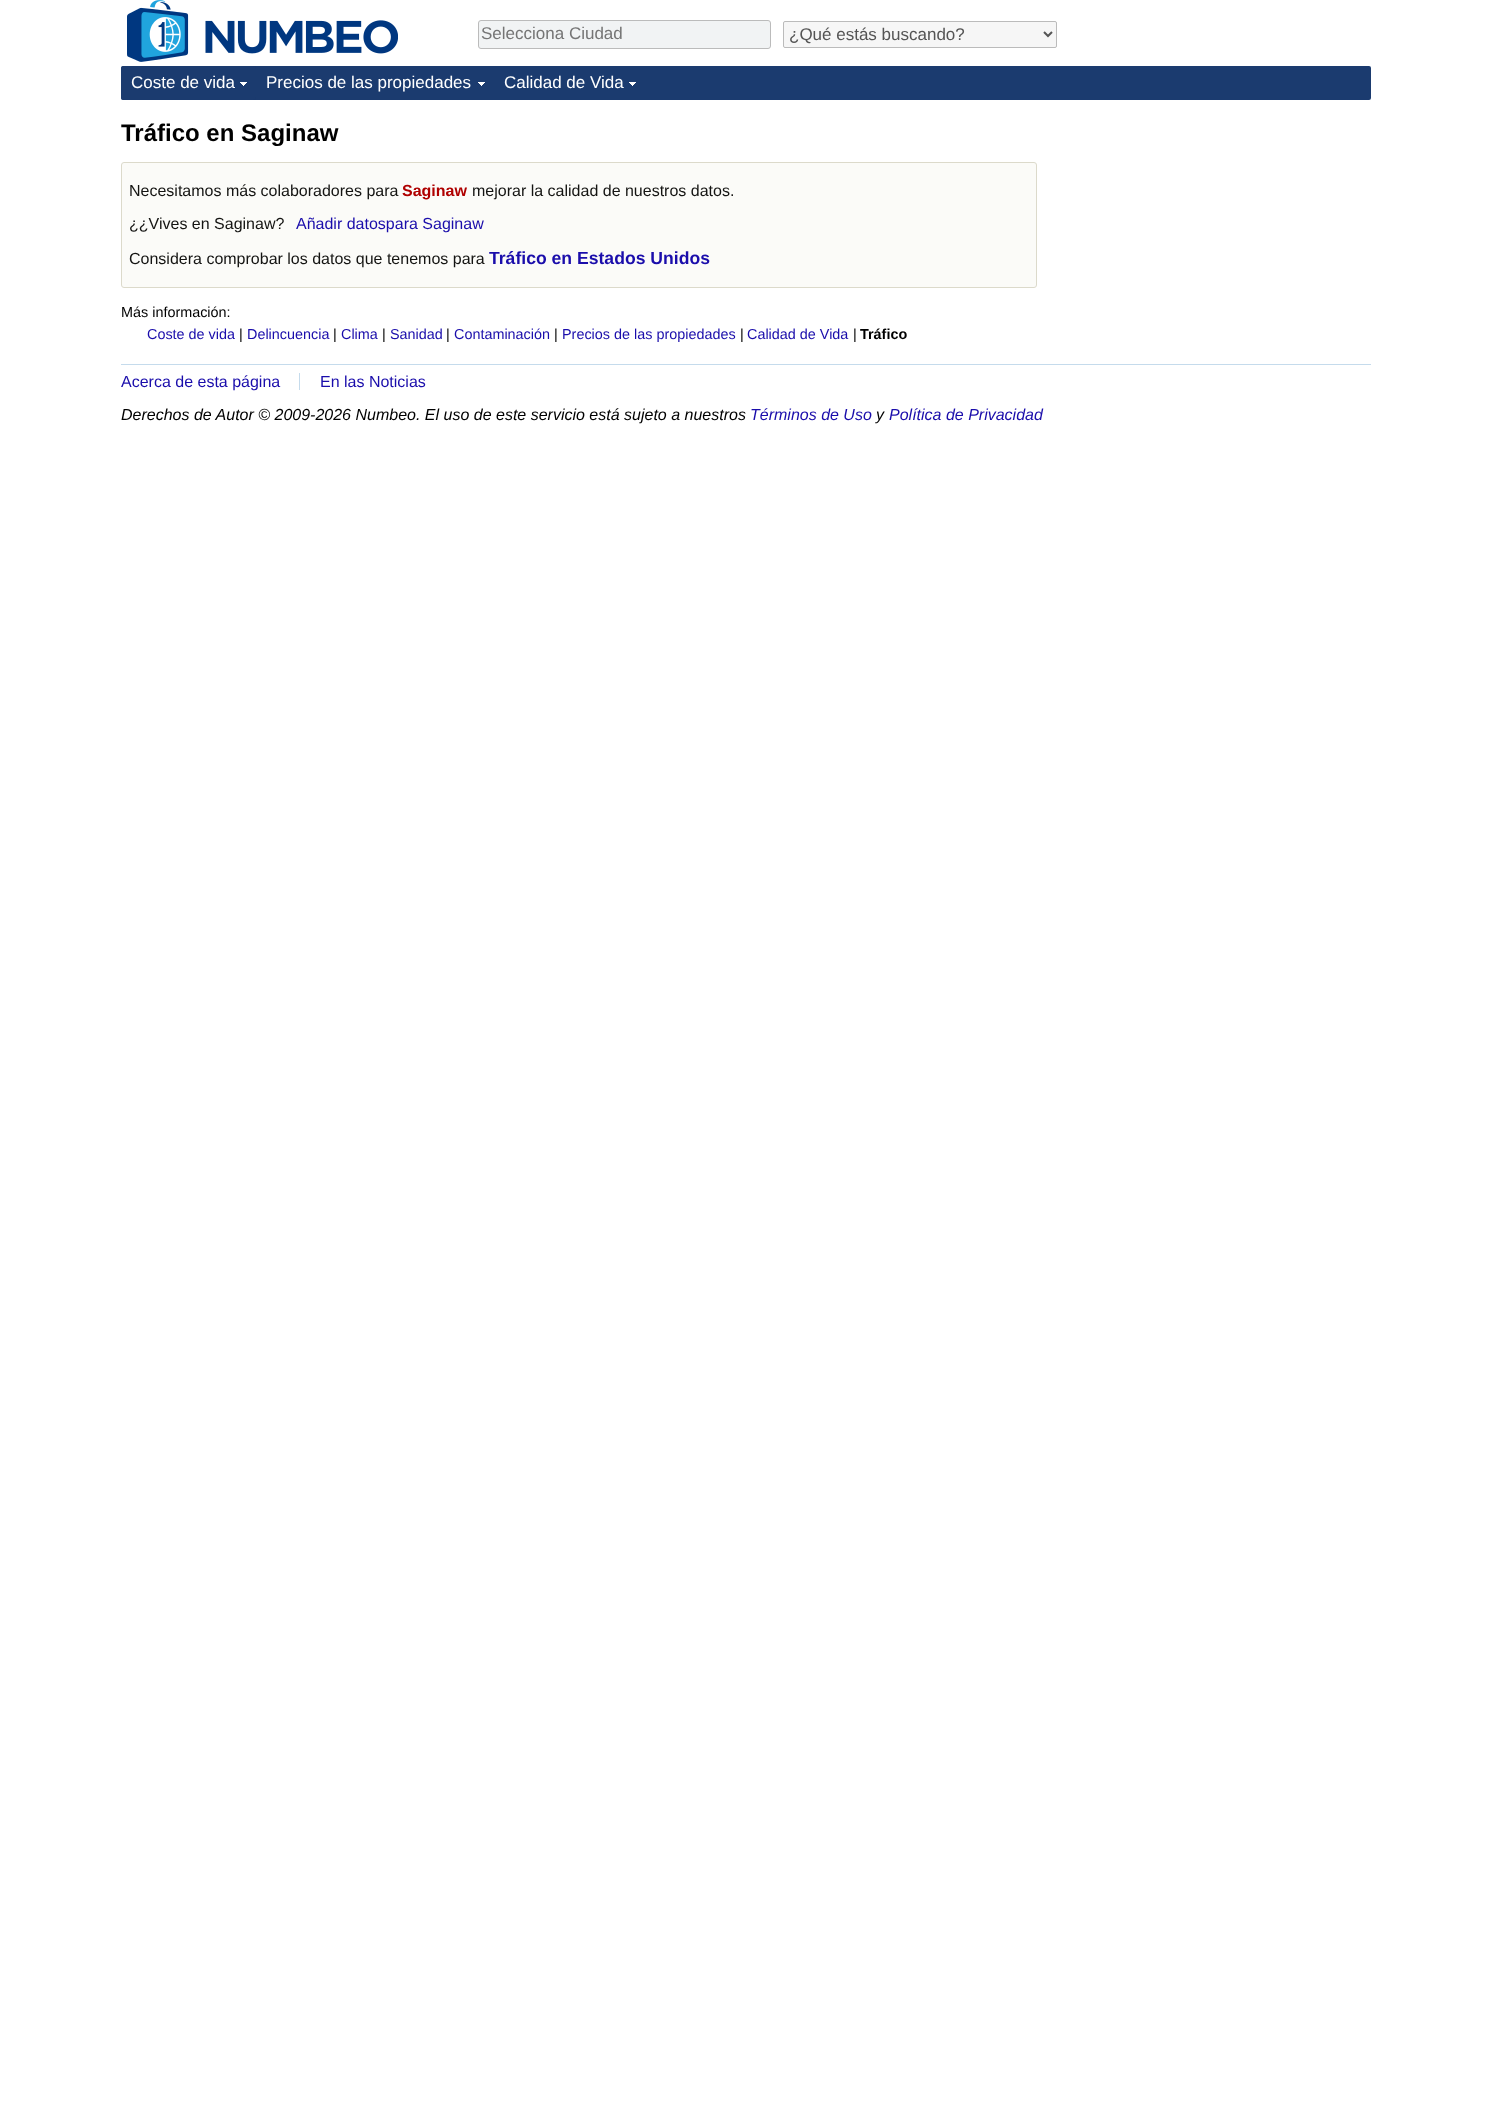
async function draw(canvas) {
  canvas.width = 1491
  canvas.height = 2107
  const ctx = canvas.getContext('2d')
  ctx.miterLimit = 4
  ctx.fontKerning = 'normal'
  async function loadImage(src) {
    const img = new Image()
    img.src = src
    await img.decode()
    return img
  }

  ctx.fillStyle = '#fff'
  ctx.fillRect(0, 0, 1491, 2107)
  ctx.drawImage(await loadImage('image0.png'), 127, 0, 62, 62)
  ctx.drawImage(await loadImage('image1.png'), 205, 20, 193, 34)
  ctx.fillStyle = '#f1f3f4'
  ctx.beginPath()
  ctx.roundRect(478.5, 20.5, 292, 28, 2.5)
  ctx.fill()
  ctx.strokeStyle = '#bbb'
  ctx.stroke()
  ctx.font = '17px Liberation Sans'
  ctx.fillStyle = '#757575'
  ctx.fillText('Selecciona Ciudad', 481, 39)
  ctx.fillStyle = '#f6f6f6'
  ctx.beginPath()
  ctx.roundRect(783.5, 21.5, 273, 26, 1.5)
  ctx.fill()
  ctx.stroke()
  ctx.beginPath()
  ctx.moveTo(1044, 32)
  ctx.lineTo(1048, 36)
  ctx.lineTo(1052, 32)
  ctx.strokeStyle = '#555'
  ctx.lineWidth = 2
  ctx.stroke()
  ctx.fillStyle = '#555'
  ctx.fillText('¿Qué estás buscando?', 789, 40)
  ctx.fillStyle = '#1b3b6f'
  ctx.beginPath()
  ctx.roundRect(121, 66, 1250, 34, 2)
  ctx.fill()
  ctx.beginPath()
  ctx.roundRect(121, 66, 135, 34, 3)
  ctx.fill()
  ctx.drawImage(await loadImage('image2.png'), 240, 82, 7, 4)
  ctx.fillStyle = '#fff'
  ctx.fillText('Coste de vida', 131, 88)
  ctx.drawImage(await loadImage('image2.png'), 478, 82, 7, 4)
  ctx.fillText('Precios de las propiedades', 266, 88)
  ctx.drawImage(await loadImage('image2.png'), 629, 82, 7, 4)
  ctx.fillText('Calidad de Vida', 504, 88)
  ctx.font = 'bold 24px Liberation Sans'
  ctx.fillStyle = '#000'
  ctx.fillText('Tráfico en Saginaw', 121, 141)
  ctx.fillStyle = '#fbfbf8'
  ctx.beginPath()
  ctx.roundRect(121.5, 162.5, 915, 125, 2.5)
  ctx.fill()
  ctx.strokeStyle = '#dcdacb'
  ctx.lineWidth = 1
  ctx.stroke()
  ctx.font = '16px Liberation Sans'
  ctx.fillStyle = '#141412'
  ctx.fillText('Necesitamos más colaboradores para', 129, 196)
  ctx.font = 'bold 16px Liberation Sans'
  ctx.fillStyle = '#af0000'
  ctx.fillText('Saginaw', 402, 196)
  ctx.font = '16px Liberation Sans'
  ctx.fillStyle = '#141412'
  ctx.fillText('mejorar la calidad de nuestros datos.', 472, 196)
  ctx.fillText('¿¿Vives en Saginaw?', 129, 229)
  ctx.fillStyle = '#1a0dab'
  ctx.fillText('Añadir datospara Saginaw', 296, 229)
  ctx.fillStyle = '#141412'
  ctx.fillText('Considera comprobar los datos que tenemos para', 129, 264)
  ctx.font = 'bold 17.6px Liberation Sans'
  ctx.fillStyle = '#1a0dab'
  ctx.fillText('Tráfico en Estados Unidos', 489, 264)
  ctx.font = '14.4px Liberation Sans'
  ctx.fillStyle = '#000'
  ctx.fillText('Más información:', 121, 317)
  ctx.fillStyle = '#1a0dab'
  ctx.fillText('Coste de vida', 147, 339)
  ctx.fillStyle = '#000'
  ctx.fillText('|', 239, 339)
  ctx.fillStyle = '#1a0dab'
  ctx.fillText('Delincuencia', 247, 339)
  ctx.fillStyle = '#000'
  ctx.fillText('|', 333, 339)
  ctx.fillStyle = '#1a0dab'
  ctx.fillText('Clima', 341, 339)
  ctx.fillStyle = '#000'
  ctx.fillText('|', 382, 339)
  ctx.fillStyle = '#1a0dab'
  ctx.fillText('Sanidad', 390, 339)
  ctx.fillStyle = '#000'
  ctx.fillText('|', 446, 339)
  ctx.fillStyle = '#1a0dab'
  ctx.fillText('Contaminación', 454, 339)
  ctx.fillStyle = '#000'
  ctx.fillText('|', 554, 339)
  ctx.fillStyle = '#1a0dab'
  ctx.fillText('Precios de las propiedades', 562, 339)
  ctx.fillStyle = '#000'
  ctx.fillText('|', 740, 339)
  ctx.fillStyle = '#1a0dab'
  ctx.fillText('Calidad de Vida', 747, 339)
  ctx.fillStyle = '#000'
  ctx.fillText('|', 853, 339)
  ctx.font = 'bold 14.4px Liberation Sans'
  ctx.fillText('Tráfico', 860, 339)
  ctx.fillStyle = '#c5dbec'
  ctx.fillRect(121, 364, 1250, 1)
  ctx.font = '16px Liberation Sans'
  ctx.fillStyle = '#1a0dab'
  ctx.fillText('Acerca de esta página', 121, 387)
  ctx.fillStyle = '#c5dbec'
  ctx.fillRect(299, 373, 1, 17)
  ctx.fillStyle = '#1a0dab'
  ctx.fillText('En las Noticias', 320, 387)
  ctx.font = 'italic 16px Liberation Sans'
  ctx.fillStyle = '#000'
  ctx.fillText('Derechos de Autor © 2009-2026 Numbeo. El uso de este servicio está sujeto a nuestros', 121, 420)
  ctx.fillStyle = '#1a0dab'
  ctx.fillText('Términos de Uso', 750, 420)
  ctx.fillStyle = '#000'
  ctx.fillText('y', 876, 420)
  ctx.fillStyle = '#1a0dab'
  ctx.fillText('Política de Privacidad', 889, 420)
}

draw(document.querySelector('canvas'))
